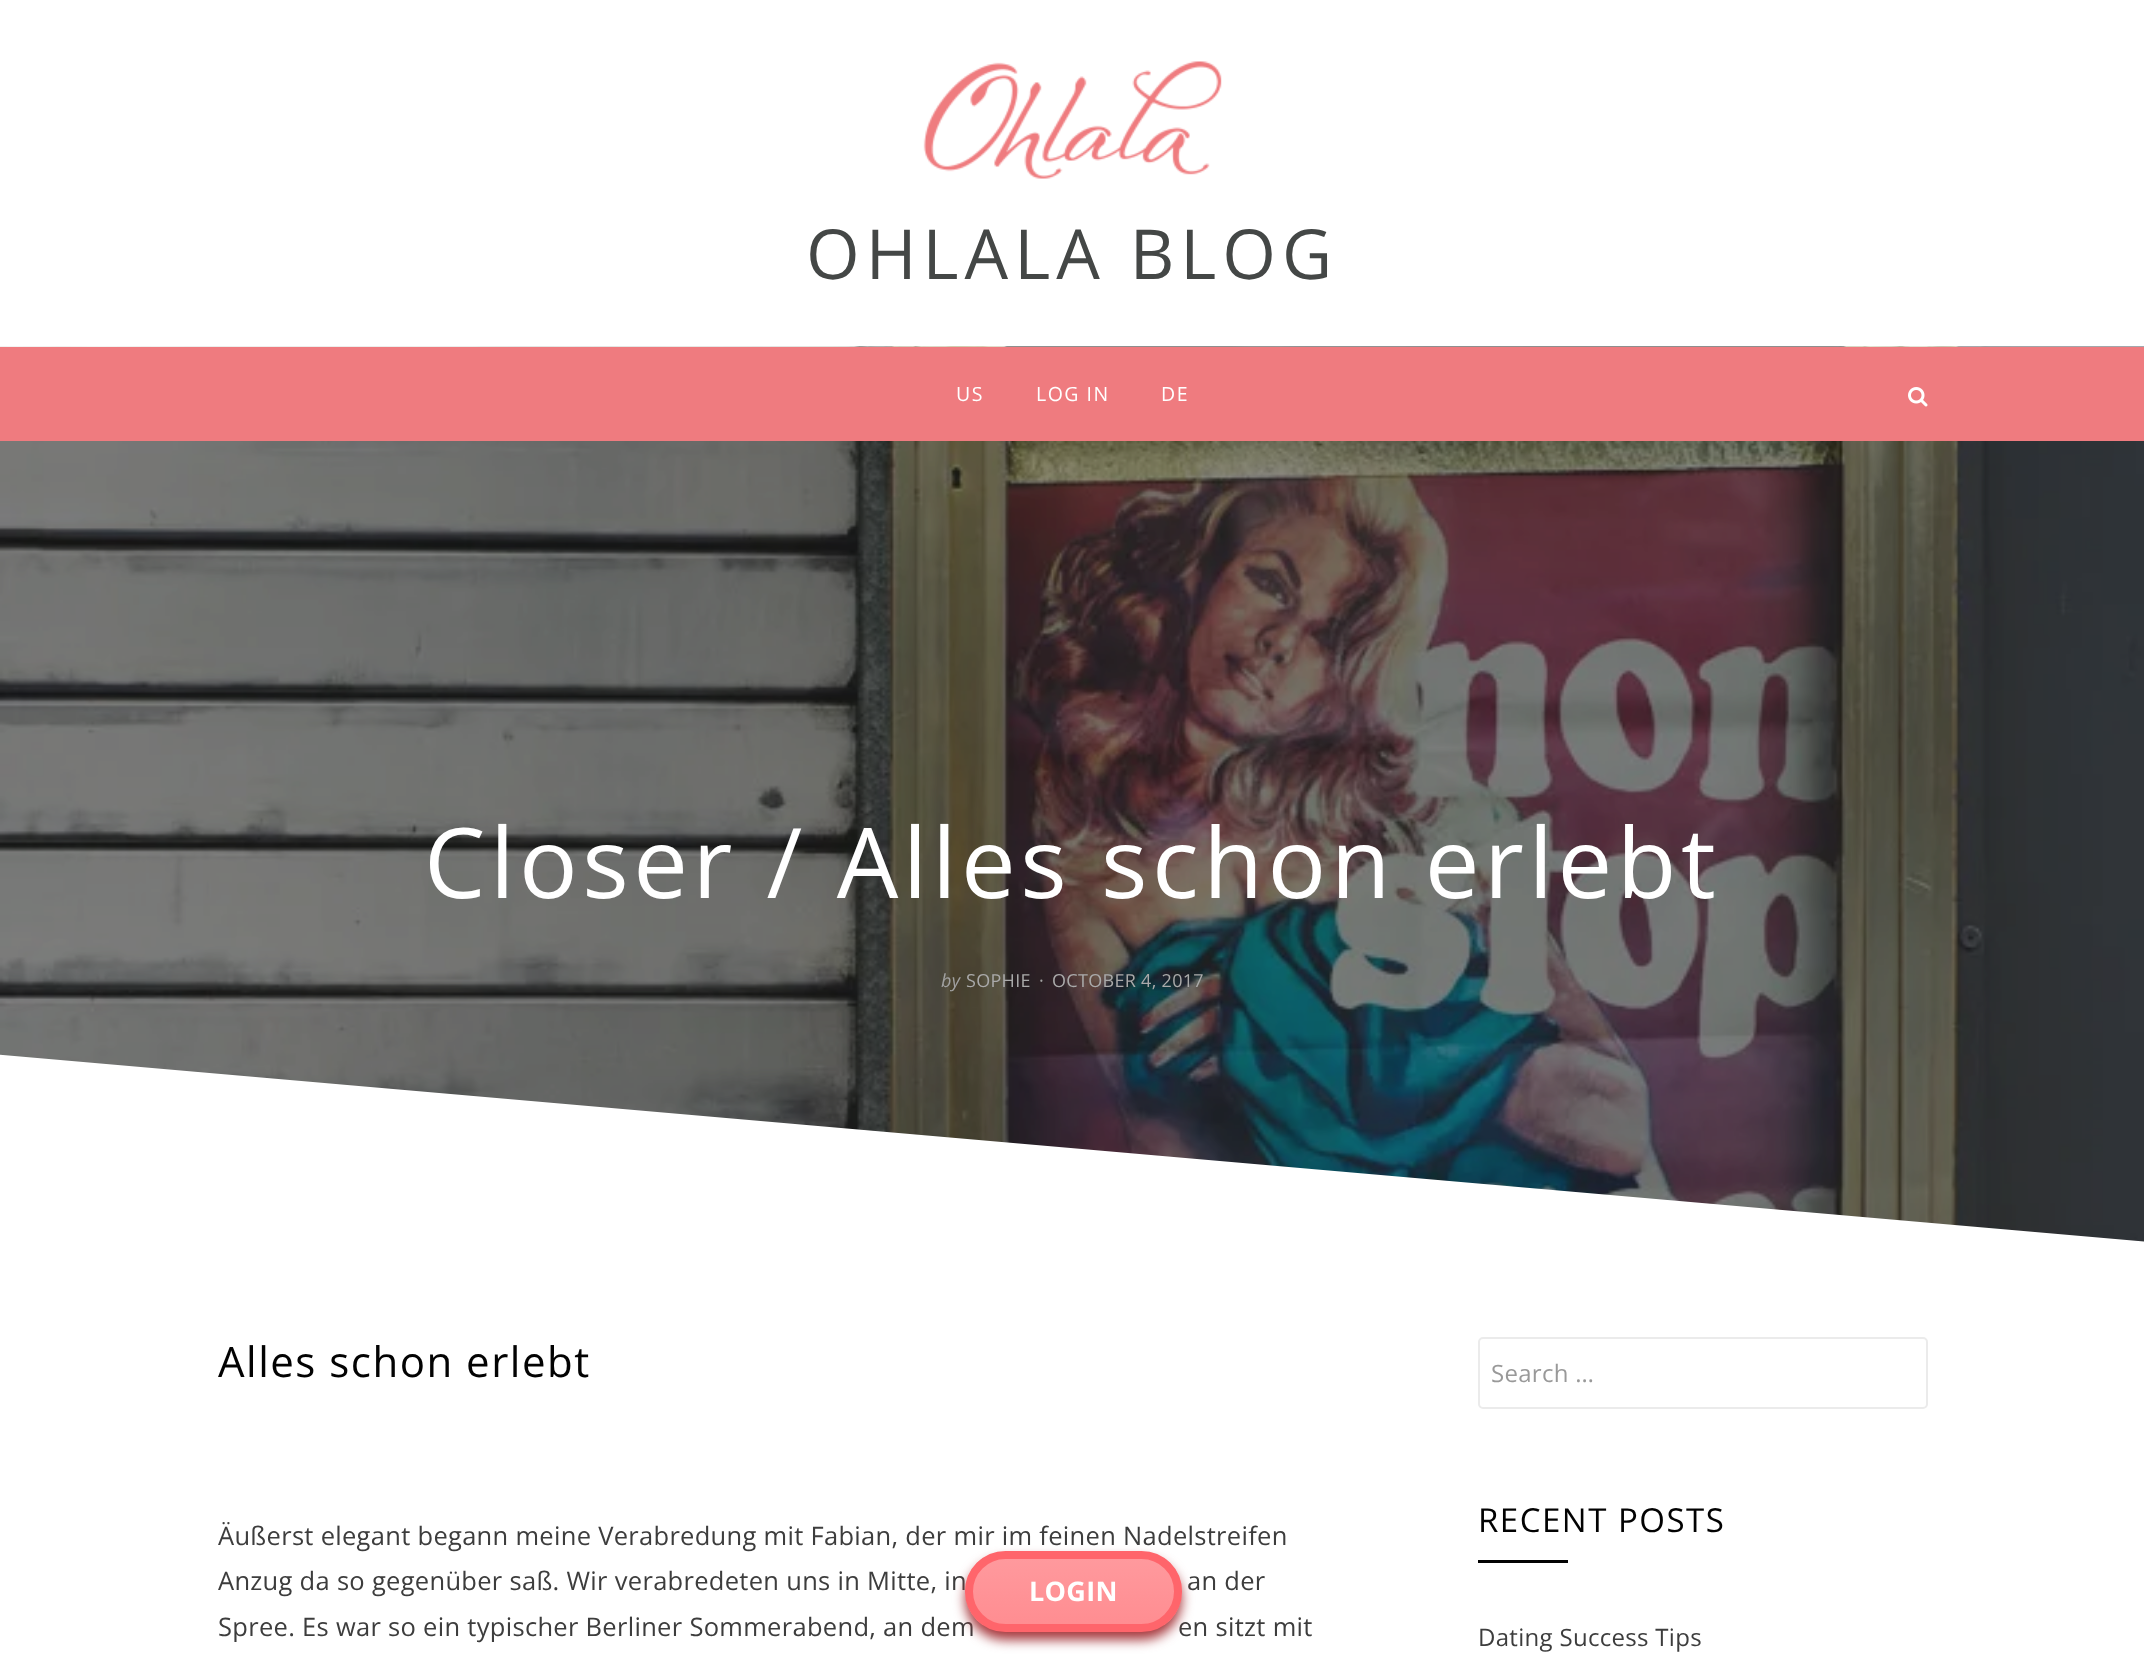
async function draw(canvas) {
  canvas.width = 2144
  canvas.height = 1655
  const ctx = canvas.getContext('2d')
  ctx.miterLimit = 4
  ctx.fontKerning = 'normal'
  async function loadImage(src) {
    const img = new Image()
    img.src = src
    await img.decode()
    return img
  }
  let gradient

  ctx.fillStyle = '#fff'
  ctx.fillRect(0, 0, 2144, 1655)
  ctx.drawImage(await loadImage('image0.png'), 923, 61, 299, 118)
  ctx.letterSpacing = '6px'
  ctx.font = '69px Open Sans'
  ctx.fillStyle = '#444746'
  ctx.fillText('OHLALA BLOG', 806, 279)
  ctx.drawImage(await loadImage('image1.png'), 0, 346, 2144, 896)
  ctx.fillStyle = '#ef7b7f'
  ctx.fillRect(0, 347, 2144, 94)
  ctx.letterSpacing = '1.5px'
  ctx.font = '19.5px Open Sans'
  ctx.fillStyle = '#fff'
  ctx.fillText('US', 956, 401)
  ctx.fillText('LOG IN', 1036, 401)
  ctx.fillText('DE', 1161, 401)
  ctx.drawImage(await loadImage('image2.png'), 1908, 387, 20, 20)
  ctx.letterSpacing = '4.5px'
  ctx.font = '97.5px Open Sans'
  ctx.fillText('Closer / Alles schon erlebt', 424, 898)
  ctx.letterSpacing = '0.3px'
  ctx.font = 'italic 18px Open Sans'
  ctx.fillStyle = '#a1a1a1'
  ctx.fillText('by', 941, 987)
  ctx.font = '18px Open Sans'
  ctx.fillStyle = '#aaa'
  ctx.fillText('SOPHIE', 966, 987)
  ctx.fillStyle = '#a1a1a1'
  ctx.fillText('·', 1039, 987)
  ctx.fillStyle = '#aaa'
  ctx.fillText('OCTOBER 4, 2017', 1052, 987)
  ctx.save()
  ctx.beginPath()
  ctx.rect(0, 347, 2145, 900)
  ctx.clip()
  ctx.fillStyle = '#fff'
  ctx.beginPath()
  ctx.moveTo(-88, 1047)
  ctx.lineTo(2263, 1252)
  ctx.lineTo(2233, 1596)
  ctx.lineTo(-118, 1391)
  ctx.closePath()
  ctx.fill()
  ctx.restore()
  ctx.letterSpacing = '1.5px'
  ctx.font = '42px Open Sans'
  ctx.fillStyle = '#020202'
  ctx.fillText('Alles schon erlebt', 218, 1377)
  ctx.letterSpacing = '0.3px'
  ctx.font = '25.5px Open Sans'
  ctx.fillStyle = '#3d3d3d'
  ctx.fillText('Äußerst elegant begann meine Verabredung mit Fabian, der mir im feinen Nadelstreifen', 218, 1545)
  ctx.fillText('Anzug da so gegenüber saß. Wir verabredeten uns in Mitte, in', 218, 1590)
  ctx.fillText('an der', 1187, 1590)
  ctx.fillText('Spree. Es war so ein typischer Berliner Sommerabend, an dem', 218, 1636)
  ctx.fillText('en sitzt mit', 1178, 1636)
  ctx.beginPath()
  ctx.roundRect(1479, 1338, 448, 70, 4)
  ctx.strokeStyle = '#ebebeb'
  ctx.lineWidth = 2
  ctx.stroke()
  ctx.font = '24px Open Sans'
  ctx.fillStyle = '#999'
  ctx.fillText('Search …', 1491, 1382)
  ctx.letterSpacing = '1.5px'
  ctx.font = '33px Open Sans'
  ctx.fillStyle = '#020202'
  ctx.fillText('RECENT POSTS', 1478, 1532)
  ctx.fillRect(1478, 1560, 90, 3)
  ctx.letterSpacing = '0.3px'
  ctx.font = '24px Open Sans'
  ctx.fillStyle = '#3d3d3d'
  ctx.fillText('Dating Success Tips', 1478, 1646)
  ctx.fillStyle = '#a73a3f'
  ctx.filter = 'blur(6px)'
  ctx.beginPath()
  ctx.roundRect(965, 1559, 217, 81, 40.5)
  ctx.fill()
  ctx.filter = 'none'
  ctx.save()
  ctx.beginPath()
  ctx.roundRect(965, 1551, 217, 81, 40.5)
  ctx.clip()
  gradient = ctx.createLinearGradient(1073, 1559, 1073, 1625)
  gradient.addColorStop(0, '#ff999d')
  gradient.addColorStop(1, '#ff8d91')
  ctx.fillStyle = gradient
  ctx.fillRect(965, 1559, 217, 66)
  ctx.restore()
  ctx.beginPath()
  ctx.roundRect(969, 1555, 209, 73, 36.5)
  ctx.strokeStyle = '#ff656b'
  ctx.lineWidth = 8
  ctx.stroke()
  ctx.font = 'bold 27px Open Sans'
  ctx.fillStyle = '#fff'
  ctx.fillText('LOGIN', 1029, 1601)
}

draw(document.querySelector('canvas'))
